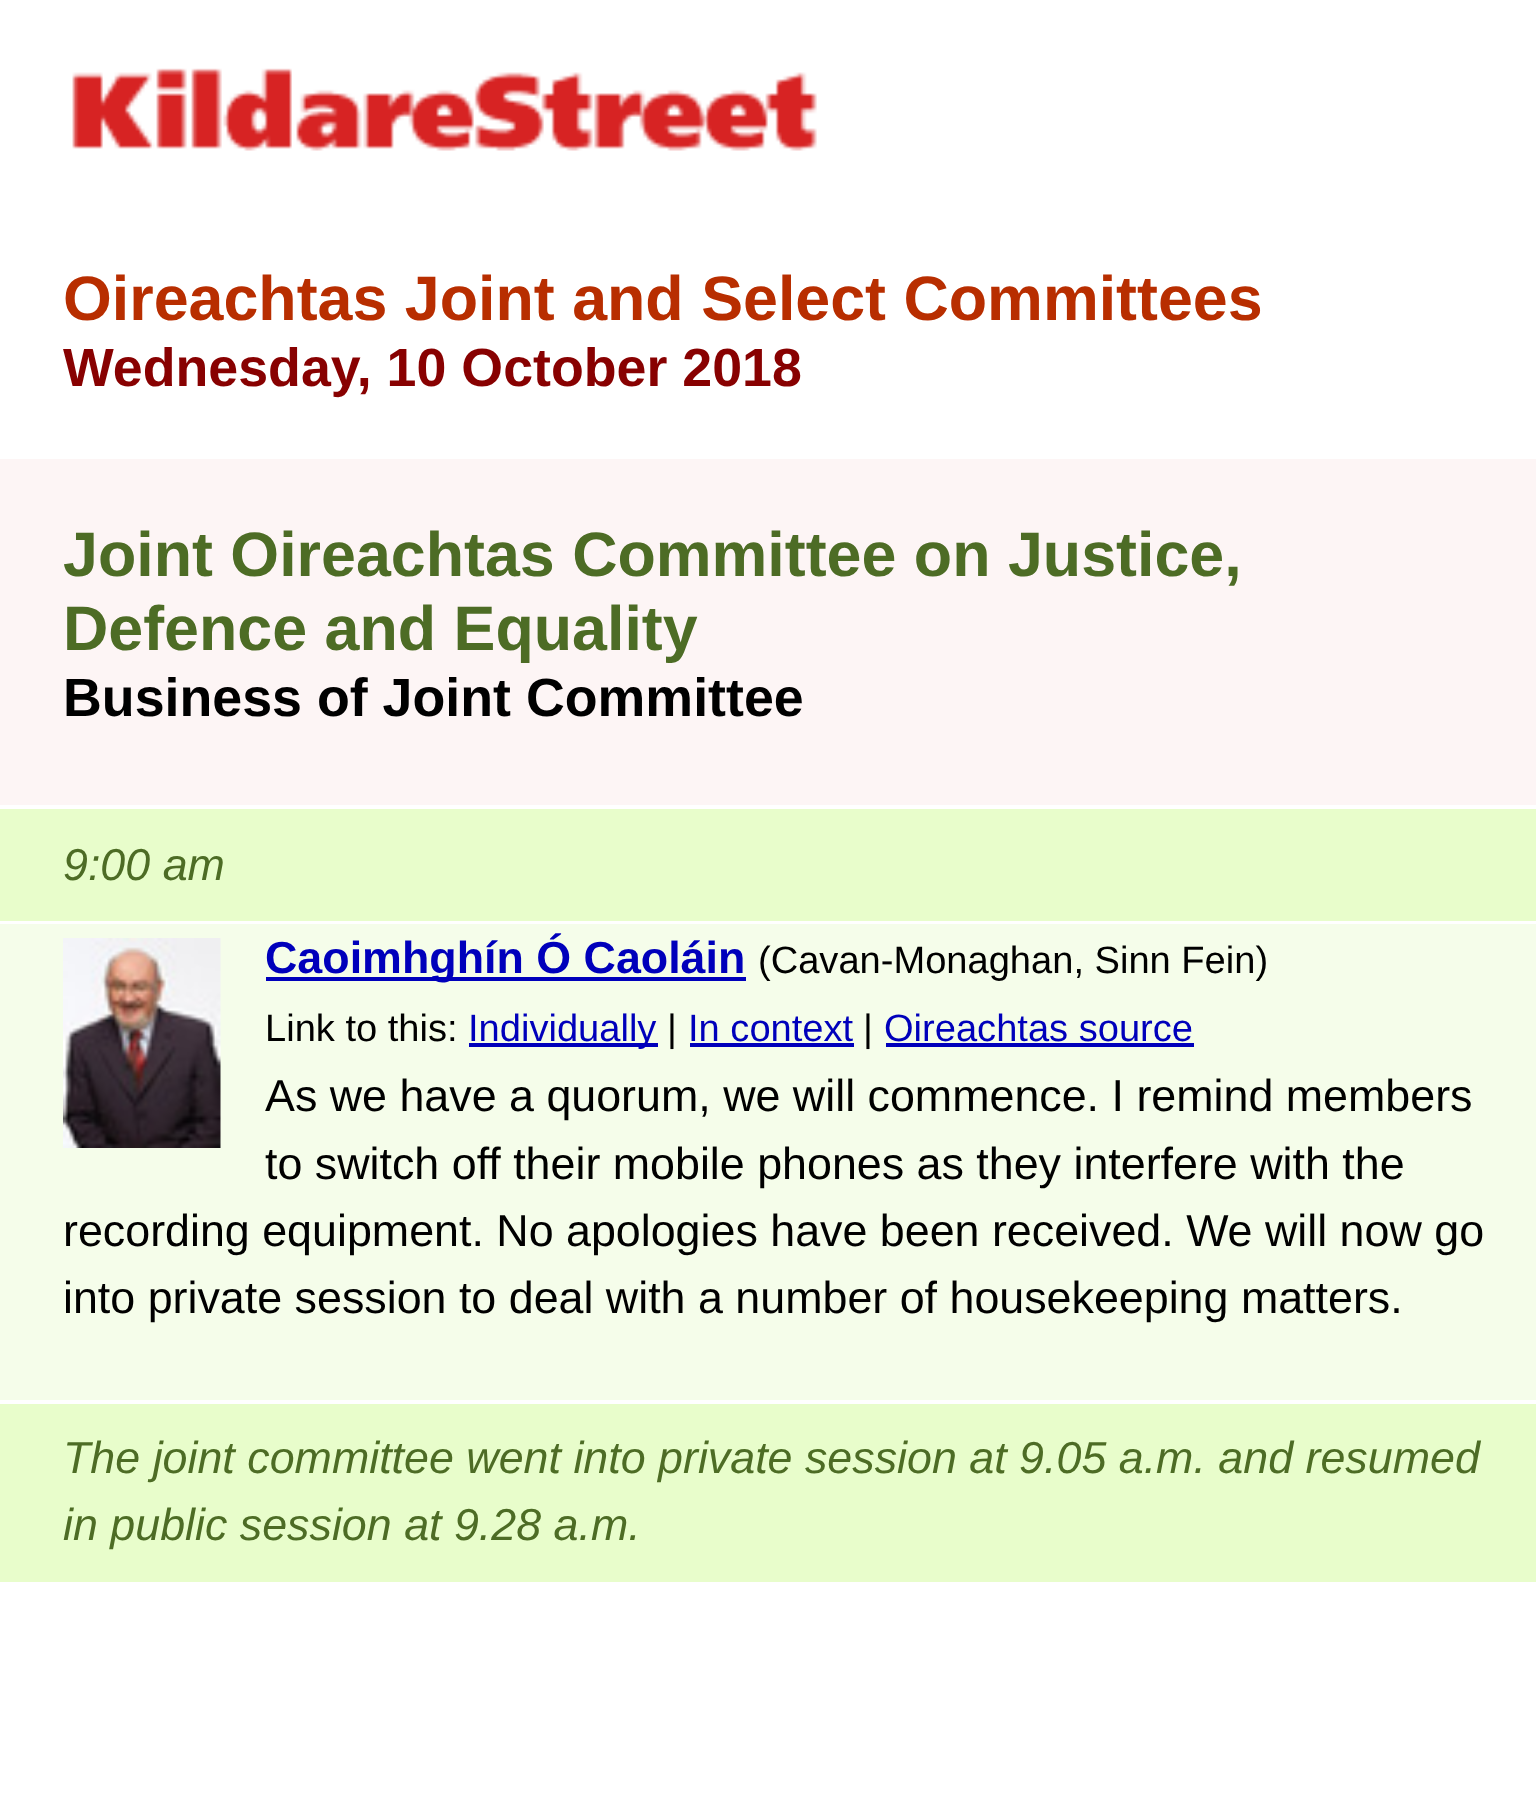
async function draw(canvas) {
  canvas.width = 1536
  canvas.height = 1795
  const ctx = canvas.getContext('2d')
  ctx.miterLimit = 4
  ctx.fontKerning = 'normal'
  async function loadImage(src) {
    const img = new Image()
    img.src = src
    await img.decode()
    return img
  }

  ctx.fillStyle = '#fff'
  ctx.fillRect(0, 0, 1536, 1795)
  ctx.drawImage(await loadImage('image0.png'), 72, 68, 745, 83)
  ctx.font = 'bold 62.75px Liberation Sans'
  ctx.fillStyle = '#b82e00'
  ctx.fillText('Oireachtas Joint and Select Committees', 63, 320)
  ctx.font = 'bold 53.75px Liberation Sans'
  ctx.fillStyle = '#880101'
  ctx.fillText('Wednesday, 10 October 2018', 63, 386)
  ctx.fillStyle = '#fdf5f5'
  ctx.fillRect(0, 459, 1536, 346)
  ctx.font = 'bold 62.75px Liberation Sans'
  ctx.fillStyle = '#4d6c25'
  ctx.fillText('Joint Oireachtas Committee on Justice,', 63, 576)
  ctx.fillText('Defence and Equality', 63, 650)
  ctx.font = 'bold 53.75px Liberation Sans'
  ctx.fillStyle = '#000'
  ctx.fillText('Business of Joint Committee', 63, 716)
  ctx.fillStyle = '#e8fdcb'
  ctx.fillRect(0, 809, 1536, 112)
  ctx.font = 'italic 44.8px Liberation Sans'
  ctx.fillStyle = '#4d6c25'
  ctx.fillText('9:00 am', 63, 880)
  ctx.fillStyle = '#f5fdea'
  ctx.fillRect(0, 924, 1536, 476)
  ctx.drawImage(await loadImage('image1.png'), 63, 938, 158, 210)
  ctx.fillStyle = '#00b'
  ctx.fillRect(266, 977, 480, 4)
  ctx.font = 'bold 44.8px Liberation Sans'
  ctx.fillText('Caoimhghín Ó Caoláin', 265, 973)
  ctx.font = '38.1px Liberation Sans'
  ctx.fillStyle = '#000'
  ctx.fillText('(Cavan-Monaghan, Sinn Fein)', 758, 973)
  ctx.fillText('Link to this:', 265, 1041)
  ctx.fillStyle = '#00b'
  ctx.fillRect(469, 1043, 189, 4)
  ctx.fillText('Individually', 468, 1041)
  ctx.fillStyle = '#000'
  ctx.fillText('|', 667, 1041)
  ctx.fillStyle = '#00b'
  ctx.fillText('In context', 688, 1041)
  ctx.fillRect(690, 1043, 164, 4)
  ctx.fillStyle = '#000'
  ctx.fillText('|', 863, 1041)
  ctx.fillStyle = '#00b'
  ctx.fillText('Oireachtas source', 884, 1041)
  ctx.fillRect(886, 1043, 308, 4)
  ctx.font = '44.8px Liberation Sans'
  ctx.fillStyle = '#000'
  ctx.fillText('As we have a quorum, we will commence. I remind members', 265, 1111)
  ctx.fillText('to switch off their mobile phones as they interfere with the', 265, 1179)
  ctx.fillText('recording equipment. No apologies have been received. We will now go', 63, 1246)
  ctx.fillText('into private session to deal with a number of housekeeping matters.', 63, 1313)
  ctx.fillStyle = '#e8fdcb'
  ctx.fillRect(0, 1404, 1536, 178)
  ctx.font = 'italic 44.8px Liberation Sans'
  ctx.fillStyle = '#4d6c25'
  ctx.fillText('The joint committee went into private session at 9.05 a.m. and resumed', 63, 1473)
  ctx.fillText('in public session at 9.28 a.m.', 63, 1540)
}

draw(document.querySelector('canvas'))
